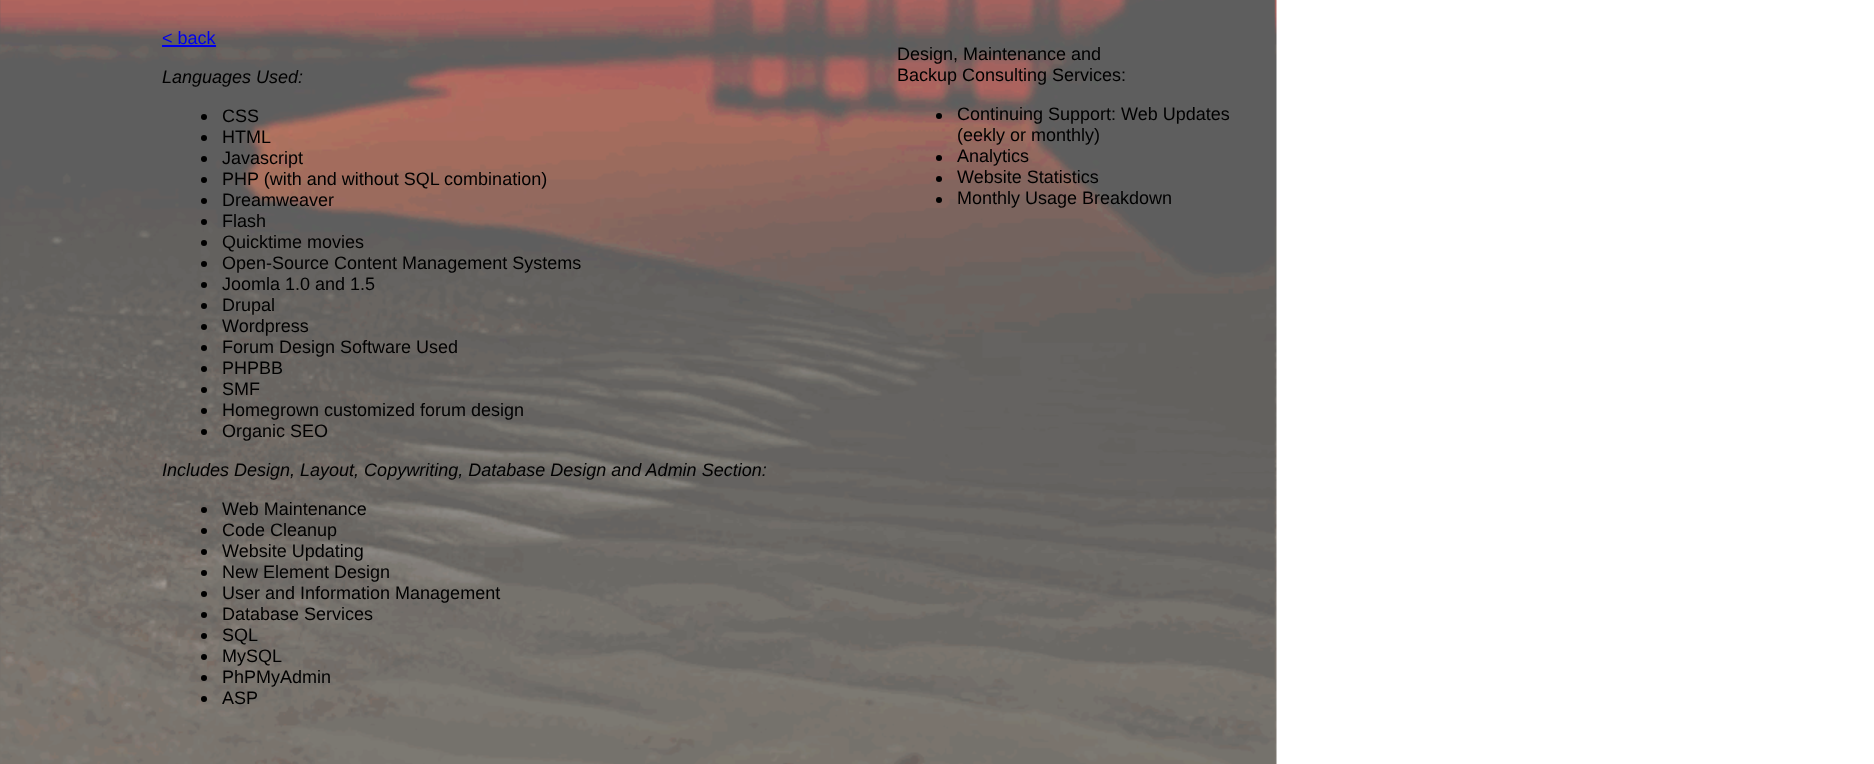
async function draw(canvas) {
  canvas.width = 1874
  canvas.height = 764
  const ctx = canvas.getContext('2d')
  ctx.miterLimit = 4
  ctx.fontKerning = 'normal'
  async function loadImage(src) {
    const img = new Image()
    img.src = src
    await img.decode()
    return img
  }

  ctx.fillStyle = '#fff'
  ctx.fillRect(0, 0, 1874, 764)
  ctx.drawImage(await loadImage('image0.png'), 0, 0, 1277, 764)
  ctx.font = '18px Liberation Sans'
  ctx.fillStyle = '#00e'
  ctx.fillText('< back', 162, 44)
  ctx.fillRect(162, 45, 54, 2)
  ctx.font = 'italic 18px Liberation Sans'
  ctx.fillStyle = '#000'
  ctx.fillText('Languages Used:', 162, 83)
  ctx.beginPath()
  ctx.arc(204, 117, 3, 0, 2 * Math.PI)
  ctx.fill()
  ctx.font = '18px Liberation Sans'
  ctx.fillText('CSS', 222, 122)
  ctx.beginPath()
  ctx.arc(204, 138, 3, 0, 2 * Math.PI)
  ctx.fill()
  ctx.fillText('HTML', 222, 143)
  ctx.beginPath()
  ctx.arc(204, 159, 3, 0, 2 * Math.PI)
  ctx.fill()
  ctx.fillText('Javascript', 222, 164)
  ctx.beginPath()
  ctx.arc(204, 180, 3, 0, 2 * Math.PI)
  ctx.fill()
  ctx.fillText('PHP (with and without SQL combination)', 222, 185)
  ctx.beginPath()
  ctx.arc(204, 201, 3, 0, 2 * Math.PI)
  ctx.fill()
  ctx.fillText('Dreamweaver', 222, 206)
  ctx.beginPath()
  ctx.arc(204, 222, 3, 0, 2 * Math.PI)
  ctx.fill()
  ctx.fillText('Flash', 222, 227)
  ctx.beginPath()
  ctx.arc(204, 243, 3, 0, 2 * Math.PI)
  ctx.fill()
  ctx.fillText('Quicktime movies', 222, 248)
  ctx.beginPath()
  ctx.arc(204, 264, 3, 0, 2 * Math.PI)
  ctx.fill()
  ctx.fillText('Open-Source Content Management Systems', 222, 269)
  ctx.beginPath()
  ctx.arc(204, 285, 3, 0, 2 * Math.PI)
  ctx.fill()
  ctx.fillText('Joomla 1.0 and 1.5', 222, 290)
  ctx.beginPath()
  ctx.arc(204, 306, 3, 0, 2 * Math.PI)
  ctx.fill()
  ctx.fillText('Drupal', 222, 311)
  ctx.beginPath()
  ctx.arc(204, 327, 3, 0, 2 * Math.PI)
  ctx.fill()
  ctx.fillText('Wordpress', 222, 332)
  ctx.beginPath()
  ctx.arc(204, 348, 3, 0, 2 * Math.PI)
  ctx.fill()
  ctx.fillText('Forum Design Software Used', 222, 353)
  ctx.beginPath()
  ctx.arc(204, 369, 3, 0, 2 * Math.PI)
  ctx.fill()
  ctx.fillText('PHPBB', 222, 374)
  ctx.beginPath()
  ctx.arc(204, 390, 3, 0, 2 * Math.PI)
  ctx.fill()
  ctx.fillText('SMF', 222, 395)
  ctx.beginPath()
  ctx.arc(204, 411, 3, 0, 2 * Math.PI)
  ctx.fill()
  ctx.fillText('Homegrown customized forum design', 222, 416)
  ctx.beginPath()
  ctx.arc(204, 432, 3, 0, 2 * Math.PI)
  ctx.fill()
  ctx.fillText('Organic SEO', 222, 437)
  ctx.font = 'italic 18px Liberation Sans'
  ctx.fillText('Includes Design, Layout, Copywriting, Database Design and Admin Section:', 162, 476)
  ctx.beginPath()
  ctx.arc(204, 510, 3, 0, 2 * Math.PI)
  ctx.fill()
  ctx.font = '18px Liberation Sans'
  ctx.fillText('Web Maintenance', 222, 515)
  ctx.beginPath()
  ctx.arc(204, 531, 3, 0, 2 * Math.PI)
  ctx.fill()
  ctx.fillText('Code Cleanup', 222, 536)
  ctx.beginPath()
  ctx.arc(204, 552, 3, 0, 2 * Math.PI)
  ctx.fill()
  ctx.fillText('Website Updating', 222, 557)
  ctx.beginPath()
  ctx.arc(204, 573, 3, 0, 2 * Math.PI)
  ctx.fill()
  ctx.fillText('New Element Design', 222, 578)
  ctx.beginPath()
  ctx.arc(204, 594, 3, 0, 2 * Math.PI)
  ctx.fill()
  ctx.fillText('User and Information Management', 222, 599)
  ctx.beginPath()
  ctx.arc(204, 615, 3, 0, 2 * Math.PI)
  ctx.fill()
  ctx.fillText('Database Services', 222, 620)
  ctx.beginPath()
  ctx.arc(204, 636, 3, 0, 2 * Math.PI)
  ctx.fill()
  ctx.fillText('SQL', 222, 641)
  ctx.beginPath()
  ctx.arc(204, 657, 3, 0, 2 * Math.PI)
  ctx.fill()
  ctx.fillText('MySQL', 222, 662)
  ctx.beginPath()
  ctx.arc(204, 678, 3, 0, 2 * Math.PI)
  ctx.fill()
  ctx.fillText('PhPMyAdmin', 222, 683)
  ctx.beginPath()
  ctx.arc(204, 699, 3, 0, 2 * Math.PI)
  ctx.fill()
  ctx.fillText('ASP', 222, 704)
  ctx.fillText('Design, Maintenance and', 897, 60)
  ctx.fillText('Backup Consulting Services:', 897, 81)
  ctx.beginPath()
  ctx.arc(939, 116, 3, 0, 2 * Math.PI)
  ctx.fill()
  ctx.fillText('Continuing Support: Web Updates', 957, 120)
  ctx.fillText('(eekly or monthly)', 957, 141)
  ctx.beginPath()
  ctx.arc(939, 158, 3, 0, 2 * Math.PI)
  ctx.fill()
  ctx.fillText('Analytics', 957, 162)
  ctx.beginPath()
  ctx.arc(939, 179, 3, 0, 2 * Math.PI)
  ctx.fill()
  ctx.fillText('Website Statistics', 957, 183)
  ctx.beginPath()
  ctx.arc(939, 200, 3, 0, 2 * Math.PI)
  ctx.fill()
  ctx.fillText('Monthly Usage Breakdown', 957, 204)
}

draw(document.querySelector('canvas'))
